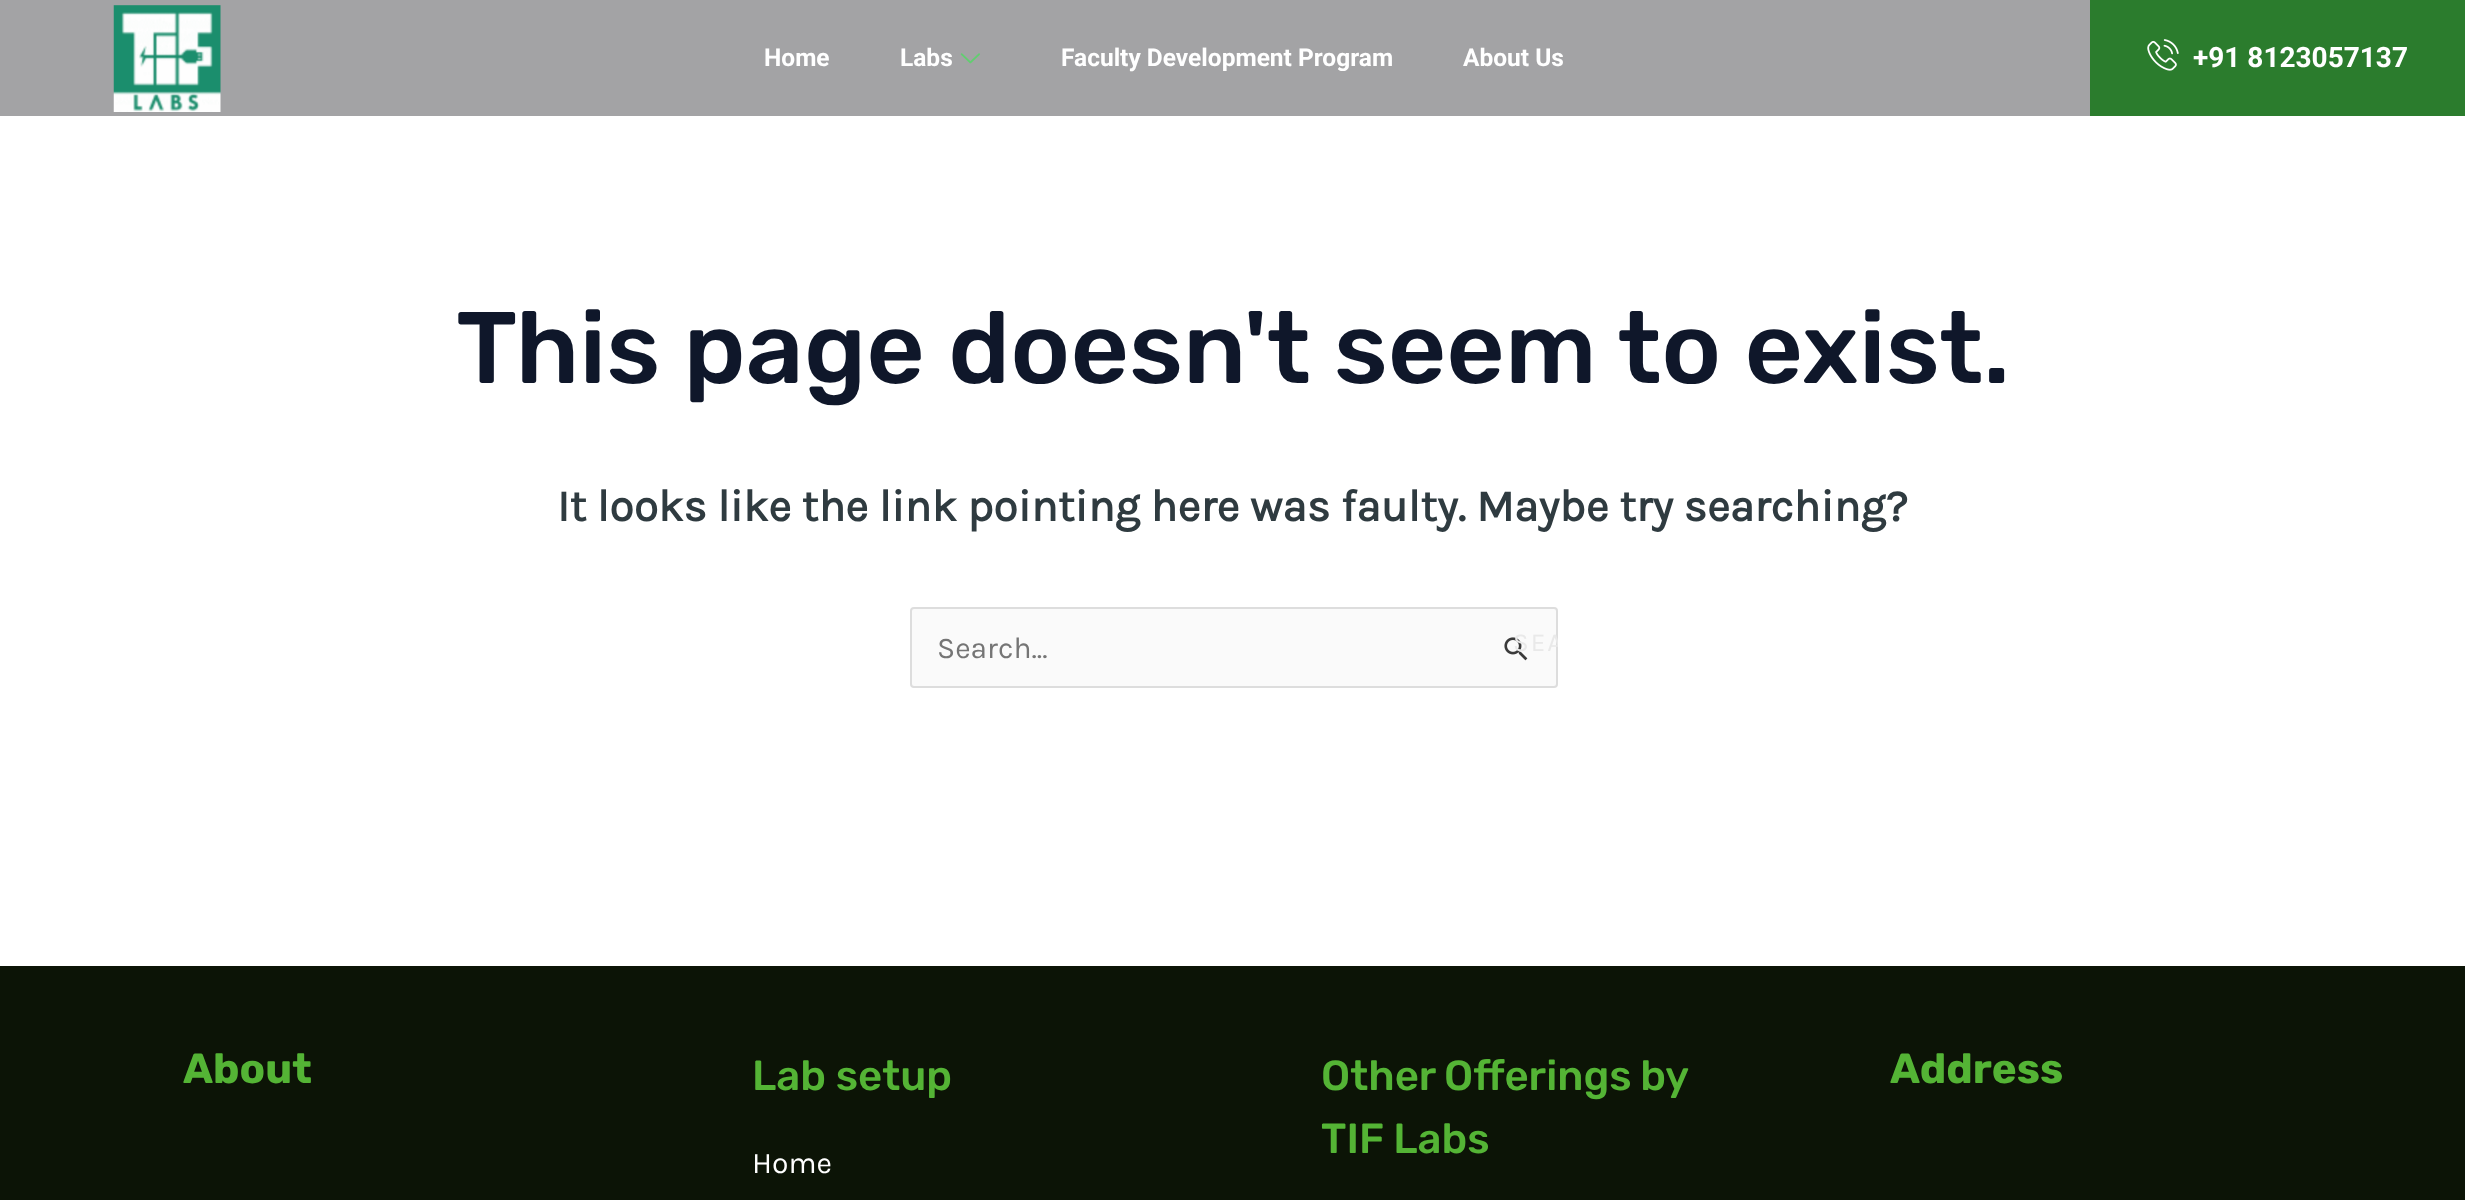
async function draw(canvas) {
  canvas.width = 2465
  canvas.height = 1200
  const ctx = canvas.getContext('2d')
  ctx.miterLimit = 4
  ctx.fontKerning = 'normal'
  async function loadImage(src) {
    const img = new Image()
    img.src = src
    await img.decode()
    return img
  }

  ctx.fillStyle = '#fff'
  ctx.fillRect(0, 0, 2465, 1200)
  ctx.fillStyle = '#a3a3a5'
  ctx.fillRect(0, 0, 2090, 116)
  ctx.drawImage(await loadImage('image0.png'), 113, 5, 108, 107)
  ctx.font = 'bold 24.5px Roboto'
  ctx.fillStyle = '#fff'
  ctx.fillText('Home', 764, 66)
  ctx.fillText('Labs', 900, 66)
  ctx.drawImage(await loadImage('image1.png'), 960, 53, 20, 11)
  ctx.fillText('Faculty Development Program', 1061, 66)
  ctx.fillText('About Us', 1463, 66)
  ctx.fillStyle = '#2b7c2d'
  ctx.fillRect(2090, 0, 375, 116)
  ctx.drawImage(await loadImage('image2.png'), 2147, 39, 32, 32)
  ctx.font = 'bold 28px Roboto'
  ctx.fillStyle = '#fff'
  ctx.fillText('+91 8123057137', 2193, 67)
  ctx.font = '500 101.5px Rubik'
  ctx.fillStyle = '#0f172a'
  ctx.fillText('This page doesn\'t seem to exist.', 456, 383)
  ctx.font = 'bold 44.6px Karla'
  ctx.fillStyle = '#2f3b40'
  ctx.fillText('It looks like the link pointing here was faulty. Maybe try searching?', 557, 521)
  ctx.fillStyle = '#fafafa'
  ctx.beginPath()
  ctx.roundRect(911, 608, 646, 79, 3)
  ctx.fill()
  ctx.strokeStyle = '#ddd'
  ctx.lineWidth = 2
  ctx.stroke()
  ctx.font = '30px Karla'
  ctx.fillStyle = '#757575'
  ctx.fillText('Search...', 937, 658)
  ctx.drawImage(await loadImage('image3.png'), 1504, 637, 24, 24)
  ctx.save()
  ctx.beginPath()
  ctx.roundRect(1479, 607, 79, 72, 4)
  ctx.clip()
  ctx.letterSpacing = '2px'
  ctx.font = '26px Karla'
  ctx.fillStyle = '#e9e9e9'
  ctx.fillText('SEA', 1513, 651)
  ctx.restore()
  ctx.fillStyle = '#0c1406'
  ctx.fillRect(0, 966, 2465, 234)
  ctx.font = 'bold 42px Rubik'
  ctx.fillStyle = '#54b435'
  ctx.fillText('About', 183, 1083)
  ctx.font = '500 42px Rubik'
  ctx.fillText('Lab setup', 752, 1090)
  ctx.font = '30px Karla'
  ctx.fillStyle = '#fff'
  ctx.fillText('Home', 752, 1173)
  ctx.wordSpacing = '-1px'
  ctx.font = '500 42px Rubik'
  ctx.fillStyle = '#54b435'
  ctx.fillText('Other Offerings by', 1321, 1090)
  ctx.wordSpacing = '0px'
  ctx.fillText('TIF Labs', 1321, 1153)
  ctx.font = 'bold 42px Rubik'
  ctx.fillText('Address', 1890, 1083)
}

draw(document.querySelector('canvas'))
